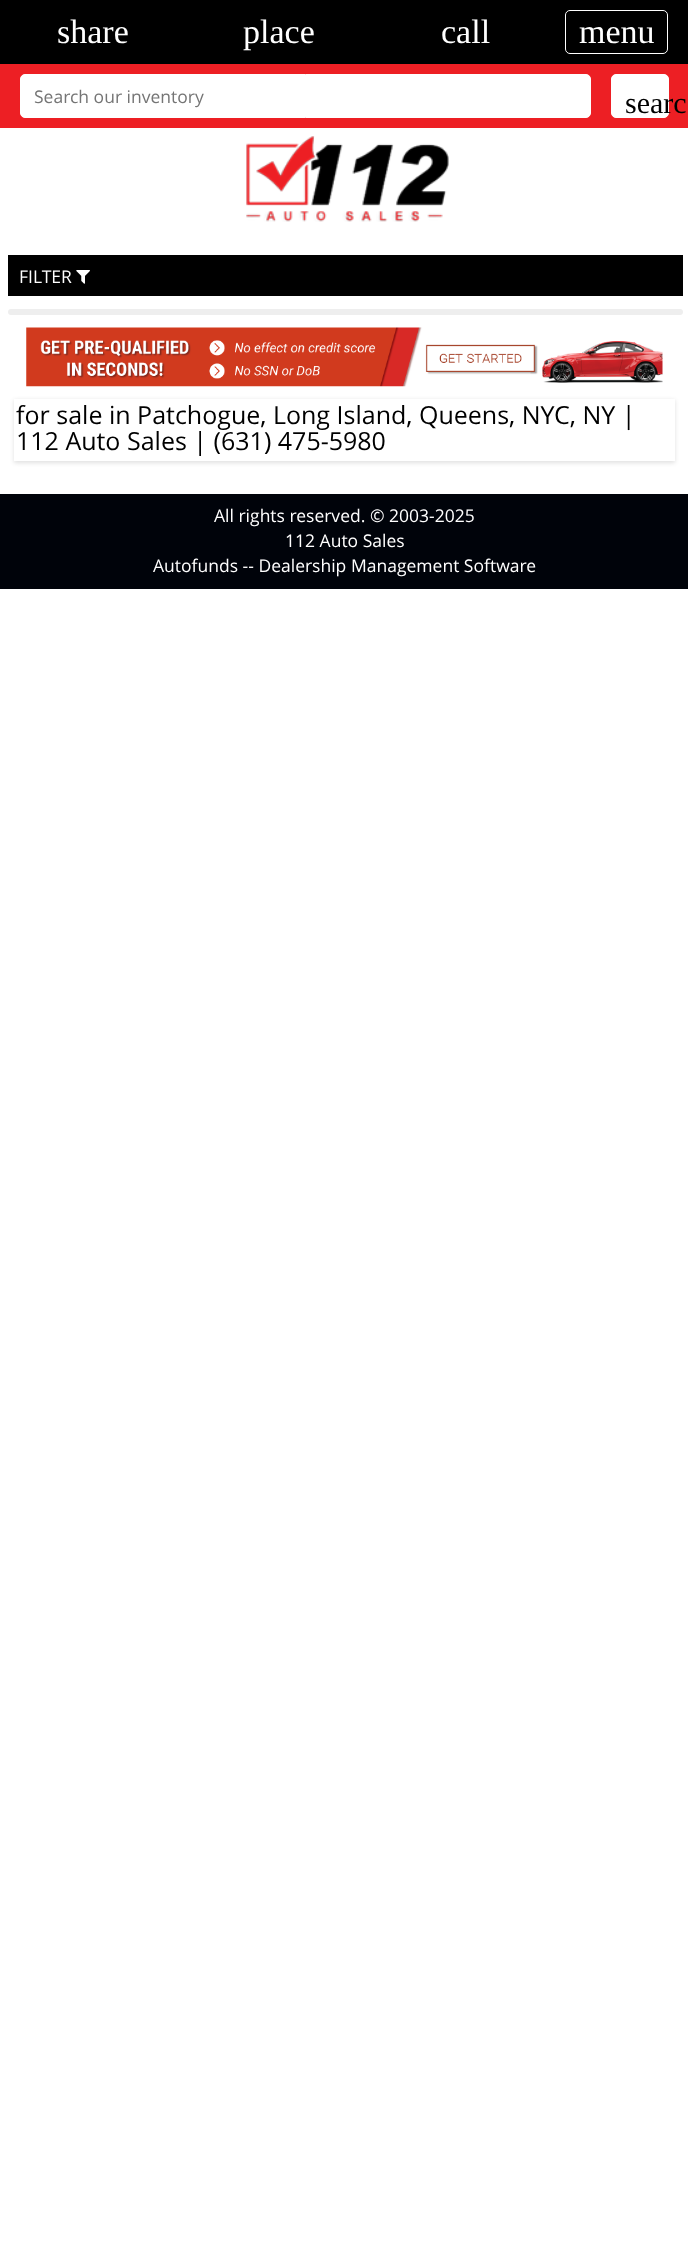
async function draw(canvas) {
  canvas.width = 688
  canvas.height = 2250
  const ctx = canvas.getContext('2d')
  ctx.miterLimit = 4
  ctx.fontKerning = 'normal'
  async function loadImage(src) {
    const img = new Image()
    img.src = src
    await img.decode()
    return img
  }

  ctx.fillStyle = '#fff'
  ctx.fillRect(0, 0, 688, 2250)
  ctx.fillStyle = '#000'
  ctx.fillRect(0, 0, 688, 64)
  ctx.font = '34px Liberation Serif'
  ctx.fillStyle = '#fff'
  ctx.fillText('share', 57, 43)
  ctx.fillText('place', 243, 43)
  ctx.fillText('call', 441, 43)
  ctx.beginPath()
  ctx.roundRect(565.5, 10.5, 102, 43, 4.5)
  ctx.strokeStyle = '#fff'
  ctx.stroke()
  ctx.fillText('menu', 579, 43)
  ctx.drawImage(await loadImage('image0.png'), 246, 136, 203, 86)
  ctx.fillStyle = '#ed1f24'
  ctx.fillRect(0, 64, 688, 64)
  ctx.fillStyle = '#fff'
  ctx.beginPath()
  ctx.roundRect(20.5, 74.5, 570, 43, 4.5)
  ctx.fill()
  ctx.stroke()
  ctx.font = '17.5px Open Sans'
  ctx.fillStyle = '#757575'
  ctx.fillText('Search our inventory', 34, 103)
  ctx.fillStyle = '#fff'
  ctx.beginPath()
  ctx.roundRect(611.5, 74.5, 57, 43, 4.5)
  ctx.fill()
  ctx.stroke()
  ctx.font = '30px Liberation Serif'
  ctx.fillStyle = '#000'
  ctx.fillText('searc', 625, 113)
  ctx.fillRect(8, 255, 675, 41)
  ctx.font = '17.5px Open Sans'
  ctx.fillStyle = '#fff'
  ctx.fillText('FILTER', 19, 283)
  ctx.drawImage(await loadImage('image1.png'), 76, 270, 14, 14)
  ctx.fillStyle = '#eee'
  ctx.beginPath()
  ctx.roundRect(8, 309, 675, 6, 3)
  ctx.fill()
  ctx.drawImage(await loadImage('image2.png'), 26, 327, 637, 60)
  ctx.save()
  ctx.beginPath()
  ctx.moveTo(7, 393)
  ctx.lineTo(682, 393)
  ctx.lineTo(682, 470)
  ctx.lineTo(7, 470)
  ctx.closePath()
  ctx.moveTo(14, 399)
  ctx.lineTo(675, 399)
  ctx.lineTo(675, 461)
  ctx.lineTo(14, 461)
  ctx.closePath()
  ctx.clip('evenodd')
  ctx.fillStyle = '#0000001f'
  ctx.filter = 'blur(2px)'
  ctx.beginPath()
  ctx.rect(14, 400, 661, 63)
  ctx.fill()
  ctx.filter = 'none'
  ctx.restore()
  ctx.font = '25px Open Sans'
  ctx.fillStyle = '#000'
  ctx.fillText('for sale in Patchogue, Long Island, Queens, NYC, NY |', 16, 424)
  ctx.fillText('112 Auto Sales | (631) 475-5980', 16, 450)
  ctx.fillStyle = '#00030a'
  ctx.fillRect(0, 494, 688, 95)
  ctx.font = '17.5px Open Sans'
  ctx.fillStyle = '#fff'
  ctx.fillText('All rights reserved. © 2003-2025', 214, 522)
  ctx.fillText('112 Auto Sales', 285, 547)
  ctx.fillText('Autofunds -- Dealership Management Software', 153, 572)
}

draw(document.querySelector('canvas'))
